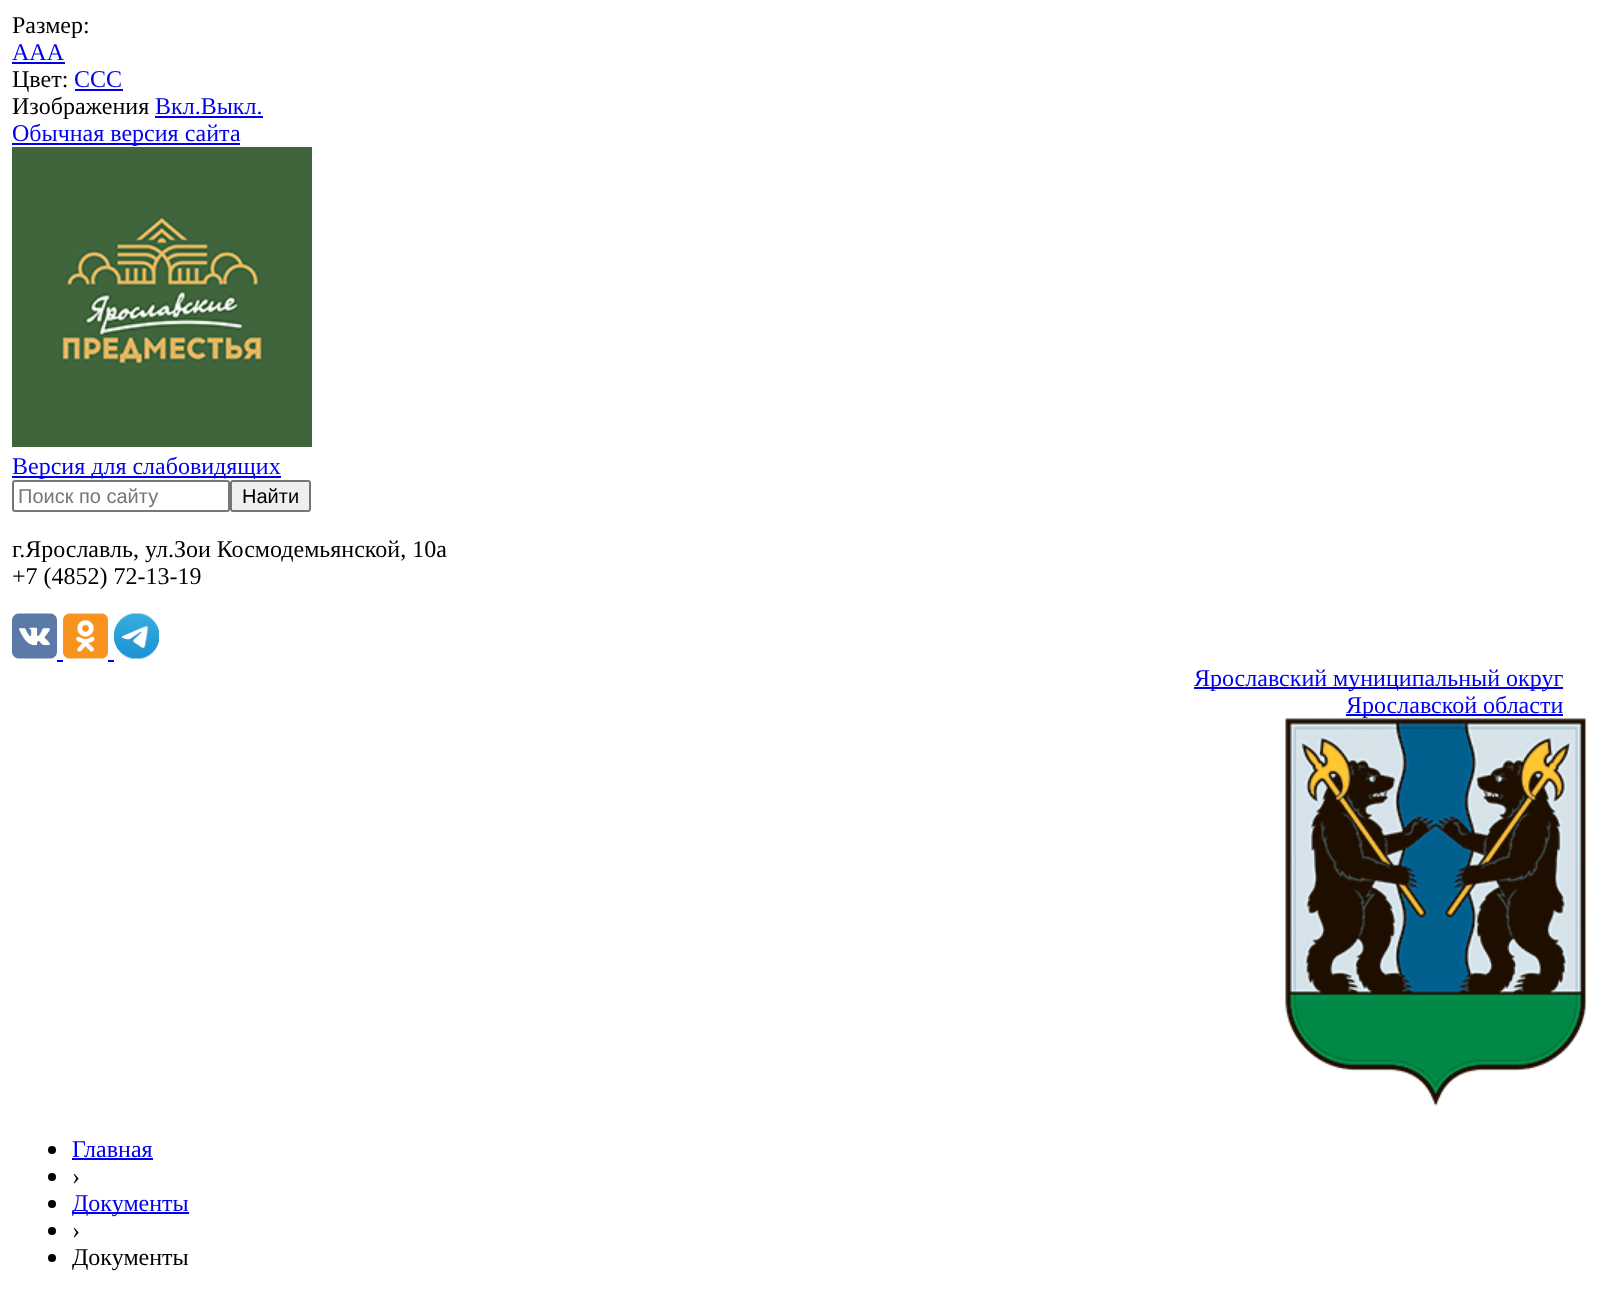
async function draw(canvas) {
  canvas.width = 1597
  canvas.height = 1311
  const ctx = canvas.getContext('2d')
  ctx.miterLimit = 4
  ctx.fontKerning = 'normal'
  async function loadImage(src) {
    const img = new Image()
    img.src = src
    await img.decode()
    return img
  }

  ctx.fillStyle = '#fff'
  ctx.fillRect(0, 0, 1597, 1311)
  ctx.font = '24px Liberation Serif'
  ctx.fillStyle = '#000'
  ctx.fillText('Размер:', 12, 33)
  ctx.fillStyle = '#00e'
  ctx.fillText('AAA', 12, 60)
  ctx.fillRect(12, 62, 53, 2)
  ctx.fillStyle = '#000'
  ctx.fillText('Цвет:', 12, 87)
  ctx.fillStyle = '#00e'
  ctx.fillText('CCC', 74, 87)
  ctx.fillRect(75, 89, 48, 2)
  ctx.fillStyle = '#000'
  ctx.fillText('Изображения', 12, 114)
  ctx.fillStyle = '#00e'
  ctx.fillText('Вкл.Выкл.', 155, 114)
  ctx.fillRect(155, 116, 108, 2)
  ctx.fillRect(12, 143, 228, 2)
  ctx.fillText('Обычная версия сайта', 12, 141)
  ctx.drawImage(await loadImage('image0.png'), 12, 147, 300, 300)
  ctx.fillRect(12, 476, 269, 2)
  ctx.fillText('Версия для слабовидящих', 12, 474)
  ctx.beginPath()
  ctx.roundRect(13, 481, 216, 30, 2)
  ctx.strokeStyle = '#767676'
  ctx.lineWidth = 2
  ctx.stroke()
  ctx.font = '20px Liberation Sans'
  ctx.fillStyle = '#757575'
  ctx.fillText('Поиск по сайту', 18, 503)
  ctx.fillStyle = '#efefef'
  ctx.beginPath()
  ctx.roundRect(231, 481, 79, 30, 2)
  ctx.fill()
  ctx.stroke()
  ctx.fillStyle = '#000'
  ctx.fillText('Найти', 242, 503)
  ctx.font = '24px Liberation Serif'
  ctx.fillText('г.Ярославль, ул.Зои Космодемьянской, 10а', 12, 557)
  ctx.fillText('+7 (4852) 72-13-19', 12, 584)
  ctx.drawImage(await loadImage('image1.png'), 12, 613, 45, 46)
  ctx.drawImage(await loadImage('image2.png'), 63, 613, 45, 46)
  ctx.drawImage(await loadImage('image3.png'), 114, 613, 45, 46)
  ctx.fillStyle = '#00e'
  ctx.fillRect(57, 660, 6, 2)
  ctx.fillRect(108, 660, 6, 2)
  ctx.fillRect(1194, 687, 369, 2)
  ctx.fillText('Ярославский муниципальный округ', 1194, 686)
  ctx.fillRect(1346, 714, 217, 2)
  ctx.fillText('Ярославской области', 1346, 713)
  ctx.drawImage(await loadImage('image4.png'), 1285, 718, 301, 388)
  ctx.fillStyle = '#000'
  ctx.beginPath()
  ctx.arc(52, 1150, 4, 0, 2 * Math.PI)
  ctx.fill()
  ctx.fillStyle = '#00e'
  ctx.fillText('Главная', 72, 1157)
  ctx.fillRect(72, 1158, 81, 2)
  ctx.fillStyle = '#000'
  ctx.beginPath()
  ctx.arc(52, 1177, 4, 0, 2 * Math.PI)
  ctx.fill()
  ctx.fillText('›', 72, 1184)
  ctx.beginPath()
  ctx.arc(52, 1204, 4, 0, 2 * Math.PI)
  ctx.fill()
  ctx.fillStyle = '#00e'
  ctx.fillRect(72, 1212, 117, 2)
  ctx.fillText('Документы', 72, 1211)
  ctx.fillStyle = '#000'
  ctx.beginPath()
  ctx.arc(52, 1231, 4, 0, 2 * Math.PI)
  ctx.fill()
  ctx.fillText('›', 72, 1238)
  ctx.beginPath()
  ctx.arc(52, 1258, 4, 0, 2 * Math.PI)
  ctx.fill()
  ctx.fillText('Документы', 72, 1265)
}

draw(document.querySelector('canvas'))
